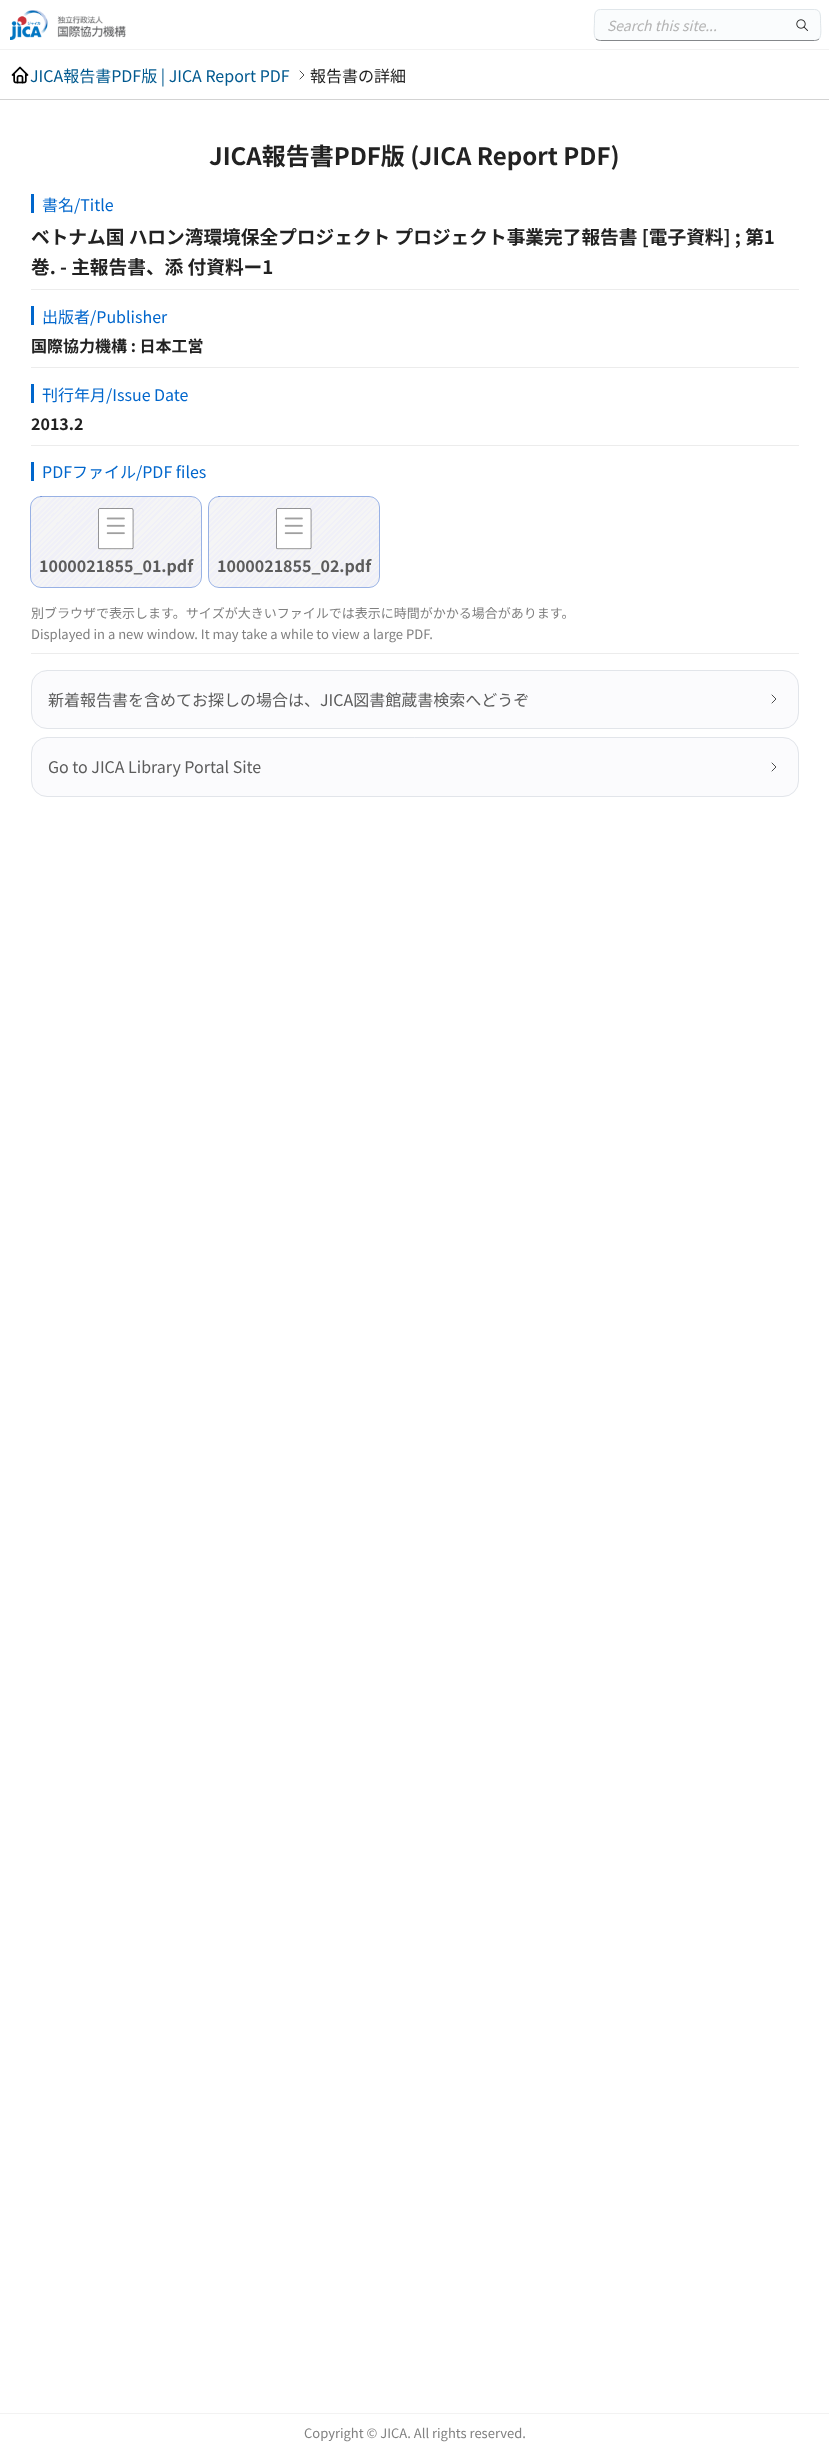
async function draw(canvas) {
  canvas.width = 829
  canvas.height = 2453
  const ctx = canvas.getContext('2d')
  ctx.miterLimit = 4
  ctx.fontKerning = 'normal'
  async function loadImage(src) {
    const img = new Image()
    img.src = src
    await img.decode()
    return img
  }
  let gradient

  ctx.fillStyle = '#fff'
  ctx.fillRect(0, 0, 829, 2453)
  ctx.fillStyle = '#f2f2f2'
  ctx.fillRect(0, 49, 829, 1)
  ctx.drawImage(await loadImage('image0.png'), 10, 10, 116, 30)
  ctx.fillStyle = '#fafcfd'
  ctx.beginPath()
  ctx.roundRect(594, 9, 227, 32, 6)
  ctx.fill()
  ctx.beginPath()
  ctx.moveTo(819, 39)
  ctx.bezierCurveTo(817.5, 40, 816, 40.5, 814.5, 40.5)
  ctx.lineTo(600.5, 40.5)
  ctx.bezierCurveTo(599, 40.5, 597.5, 40, 596, 39)
  ctx.strokeStyle = '#84878a'
  ctx.stroke()
  ctx.beginPath()
  ctx.moveTo(596, 39)
  ctx.bezierCurveTo(593, 35.5, 594.5, 26, 594.5, 22)
  ctx.bezierCurveTo(594.5, 17.5, 593.5, 9.5, 600.5, 9.5)
  ctx.lineTo(814.5, 9.5)
  ctx.bezierCurveTo(821.5, 9.5, 820.5, 17.5, 820.5, 22)
  ctx.bezierCurveTo(820.5, 26, 822, 35.5, 819, 39)
  ctx.strokeStyle = '#e0e6ea'
  ctx.stroke()
  ctx.font = 'italic 14px Noto Sans JP'
  ctx.fillStyle = '#b3b3b3'
  ctx.fillText('Search this site...', 607, 31)
  ctx.drawImage(await loadImage('image1.png'), 796, 19, 12, 12)
  ctx.fillStyle = '#d3d3d3'
  ctx.fillRect(0, 99, 829, 1)
  ctx.drawImage(await loadImage('image2.png'), 11, 66, 18, 18)
  ctx.font = '16px Noto Sans JP'
  ctx.fillStyle = '#00598f'
  ctx.fillText('JICA報告書PDF版 | JICA Report PDF', 30, 82)
  ctx.beginPath()
  ctx.moveTo(300, 71)
  ctx.lineTo(304, 75)
  ctx.lineTo(300, 79)
  ctx.strokeStyle = '#000'
  ctx.lineWidth = 0.7
  ctx.lineCap = 'round'
  ctx.lineJoin = 'round'
  ctx.stroke()
  ctx.fillStyle = '#222'
  ctx.fillText('報告書の詳細', 310, 82)
  ctx.font = 'bold 24px Noto Sans JP'
  ctx.fillText('JICA報告書PDF版 (JICA Report PDF)', 209, 165)
  ctx.fillStyle = '#ececec'
  ctx.fillRect(31, 289, 768, 1)
  ctx.fillStyle = '#06c'
  ctx.fillRect(31, 194, 3, 19)
  ctx.font = '16px Noto Sans JP'
  ctx.fillText('書名/Title', 42, 211)
  ctx.font = 'bold 18.7px Noto Sans JP'
  ctx.fillStyle = '#222'
  ctx.fillText('ベトナム国 ハロン湾環境保全プロジェクト プロジェクト事業完了報告書 [電子資料] ; 第1', 31, 244)
  ctx.fillText('巻. - 主報告書、添 付資料ー1', 31, 274)
  ctx.fillStyle = '#ececec'
  ctx.fillRect(31, 367, 768, 1)
  ctx.fillStyle = '#06c'
  ctx.fillRect(31, 306, 3, 19)
  ctx.font = '16px Noto Sans JP'
  ctx.fillText('出版者/Publisher', 42, 323)
  ctx.font = 'bold 16px Noto Sans JP'
  ctx.fillStyle = '#222'
  ctx.fillText('国際協力機構 : 日本工営', 31, 352)
  ctx.fillStyle = '#ececec'
  ctx.fillRect(31, 445, 768, 1)
  ctx.fillStyle = '#06c'
  ctx.fillRect(31, 384, 3, 19)
  ctx.font = '16px Noto Sans JP'
  ctx.fillText('刊行年月/Issue Date', 42, 401)
  ctx.font = 'bold 16px Noto Sans JP'
  ctx.fillStyle = '#222'
  ctx.fillText('2013.2', 31, 430)
  ctx.fillStyle = '#06c'
  ctx.fillRect(31, 462, 3, 19)
  ctx.font = '16px Noto Sans JP'
  ctx.fillText('PDFファイル/PDF files', 42, 478)
  gradient = ctx.createLinearGradient(181, 607, 51, 477)
  gradient.addColorStop(0, '#f5f5f5')
  gradient.addColorStop(0.01, '#f5f5f5')
  gradient.addColorStop(0.01, '#f0f0f8')
  gradient.addColorStop(0.02, '#f0f0f8')
  gradient.addColorStop(0.02, '#f5f5f5')
  gradient.addColorStop(0.03, '#f5f5f5')
  gradient.addColorStop(0.03, '#f0f0f8')
  gradient.addColorStop(0.04, '#f0f0f8')
  gradient.addColorStop(0.04, '#f5f5f5')
  gradient.addColorStop(0.05, '#f5f5f5')
  gradient.addColorStop(0.05, '#f0f0f8')
  gradient.addColorStop(0.07, '#f0f0f8')
  gradient.addColorStop(0.07, '#f5f5f5')
  gradient.addColorStop(0.08, '#f5f5f5')
  gradient.addColorStop(0.08, '#f0f0f8')
  gradient.addColorStop(0.09, '#f0f0f8')
  gradient.addColorStop(0.09, '#f5f5f5')
  gradient.addColorStop(0.1, '#f5f5f5')
  gradient.addColorStop(0.1, '#f0f0f8')
  gradient.addColorStop(0.11, '#f0f0f8')
  gradient.addColorStop(0.11, '#f5f5f5')
  gradient.addColorStop(0.12, '#f5f5f5')
  gradient.addColorStop(0.12, '#f0f0f8')
  gradient.addColorStop(0.13, '#f0f0f8')
  gradient.addColorStop(0.13, '#f5f5f5')
  gradient.addColorStop(0.14, '#f5f5f5')
  gradient.addColorStop(0.14, '#f0f0f8')
  gradient.addColorStop(0.15, '#f0f0f8')
  gradient.addColorStop(0.15, '#f5f5f5')
  gradient.addColorStop(0.16, '#f5f5f5')
  gradient.addColorStop(0.16, '#f0f0f8')
  gradient.addColorStop(0.17, '#f0f0f8')
  gradient.addColorStop(0.17, '#f5f5f5')
  gradient.addColorStop(0.18, '#f5f5f5')
  gradient.addColorStop(0.18, '#f0f0f8')
  gradient.addColorStop(0.2, '#f0f0f8')
  gradient.addColorStop(0.2, '#f5f5f5')
  gradient.addColorStop(0.21, '#f5f5f5')
  gradient.addColorStop(0.21, '#f0f0f8')
  gradient.addColorStop(0.22, '#f0f0f8')
  gradient.addColorStop(0.22, '#f5f5f5')
  gradient.addColorStop(0.23, '#f5f5f5')
  gradient.addColorStop(0.23, '#f0f0f8')
  gradient.addColorStop(0.24, '#f0f0f8')
  gradient.addColorStop(0.24, '#f5f5f5')
  gradient.addColorStop(0.25, '#f5f5f5')
  gradient.addColorStop(0.25, '#f0f0f8')
  gradient.addColorStop(0.26, '#f0f0f8')
  gradient.addColorStop(0.26, '#f5f5f5')
  gradient.addColorStop(0.27, '#f5f5f5')
  gradient.addColorStop(0.27, '#f0f0f8')
  gradient.addColorStop(0.28, '#f0f0f8')
  gradient.addColorStop(0.28, '#f5f5f5')
  gradient.addColorStop(0.29, '#f5f5f5')
  gradient.addColorStop(0.29, '#f0f0f8')
  gradient.addColorStop(0.3, '#f0f0f8')
  gradient.addColorStop(0.3, '#f5f5f5')
  gradient.addColorStop(0.32, '#f5f5f5')
  gradient.addColorStop(0.32, '#f0f0f8')
  gradient.addColorStop(0.33, '#f0f0f8')
  gradient.addColorStop(0.33, '#f5f5f5')
  gradient.addColorStop(0.34, '#f5f5f5')
  gradient.addColorStop(0.34, '#f0f0f8')
  gradient.addColorStop(0.35, '#f0f0f8')
  gradient.addColorStop(0.35, '#f5f5f5')
  gradient.addColorStop(0.36, '#f5f5f5')
  gradient.addColorStop(0.36, '#f0f0f8')
  gradient.addColorStop(0.37, '#f0f0f8')
  gradient.addColorStop(0.37, '#f5f5f5')
  gradient.addColorStop(0.38, '#f5f5f5')
  gradient.addColorStop(0.38, '#f0f0f8')
  gradient.addColorStop(0.39, '#f0f0f8')
  gradient.addColorStop(0.39, '#f5f5f5')
  gradient.addColorStop(0.4, '#f5f5f5')
  gradient.addColorStop(0.4, '#f0f0f8')
  gradient.addColorStop(0.41, '#f0f0f8')
  gradient.addColorStop(0.41, '#f5f5f5')
  gradient.addColorStop(0.42, '#f5f5f5')
  gradient.addColorStop(0.42, '#f0f0f8')
  gradient.addColorStop(0.43, '#f0f0f8')
  gradient.addColorStop(0.43, '#f5f5f5')
  gradient.addColorStop(0.45, '#f5f5f5')
  gradient.addColorStop(0.45, '#f0f0f8')
  gradient.addColorStop(0.46, '#f0f0f8')
  gradient.addColorStop(0.46, '#f5f5f5')
  gradient.addColorStop(0.47, '#f5f5f5')
  gradient.addColorStop(0.47, '#f0f0f8')
  gradient.addColorStop(0.48, '#f0f0f8')
  gradient.addColorStop(0.48, '#f5f5f5')
  gradient.addColorStop(0.49, '#f5f5f5')
  gradient.addColorStop(0.49, '#f0f0f8')
  gradient.addColorStop(0.5, '#f0f0f8')
  gradient.addColorStop(0.5, '#f5f5f5')
  gradient.addColorStop(0.51, '#f5f5f5')
  gradient.addColorStop(0.51, '#f0f0f8')
  gradient.addColorStop(0.52, '#f0f0f8')
  gradient.addColorStop(0.52, '#f5f5f5')
  gradient.addColorStop(0.53, '#f5f5f5')
  gradient.addColorStop(0.53, '#f0f0f8')
  gradient.addColorStop(0.54, '#f0f0f8')
  gradient.addColorStop(0.54, '#f5f5f5')
  gradient.addColorStop(0.55, '#f5f5f5')
  gradient.addColorStop(0.55, '#f0f0f8')
  gradient.addColorStop(0.57, '#f0f0f8')
  gradient.addColorStop(0.57, '#f5f5f5')
  gradient.addColorStop(0.58, '#f5f5f5')
  gradient.addColorStop(0.58, '#f0f0f8')
  gradient.addColorStop(0.59, '#f0f0f8')
  gradient.addColorStop(0.59, '#f5f5f5')
  gradient.addColorStop(0.6, '#f5f5f5')
  gradient.addColorStop(0.6, '#f0f0f8')
  gradient.addColorStop(0.61, '#f0f0f8')
  gradient.addColorStop(0.61, '#f5f5f5')
  gradient.addColorStop(0.62, '#f5f5f5')
  gradient.addColorStop(0.62, '#f0f0f8')
  gradient.addColorStop(0.63, '#f0f0f8')
  gradient.addColorStop(0.63, '#f5f5f5')
  gradient.addColorStop(0.64, '#f5f5f5')
  gradient.addColorStop(0.64, '#f0f0f8')
  gradient.addColorStop(0.65, '#f0f0f8')
  gradient.addColorStop(0.65, '#f5f5f5')
  gradient.addColorStop(0.66, '#f5f5f5')
  gradient.addColorStop(0.66, '#f0f0f8')
  gradient.addColorStop(0.67, '#f0f0f8')
  gradient.addColorStop(0.67, '#f5f5f5')
  gradient.addColorStop(0.68, '#f5f5f5')
  gradient.addColorStop(0.68, '#f0f0f8')
  gradient.addColorStop(0.7, '#f0f0f8')
  gradient.addColorStop(0.7, '#f5f5f5')
  gradient.addColorStop(0.71, '#f5f5f5')
  gradient.addColorStop(0.71, '#f0f0f8')
  gradient.addColorStop(0.72, '#f0f0f8')
  gradient.addColorStop(0.72, '#f5f5f5')
  gradient.addColorStop(0.73, '#f5f5f5')
  gradient.addColorStop(0.73, '#f0f0f8')
  gradient.addColorStop(0.74, '#f0f0f8')
  gradient.addColorStop(0.74, '#f5f5f5')
  gradient.addColorStop(0.75, '#f5f5f5')
  gradient.addColorStop(0.75, '#f0f0f8')
  gradient.addColorStop(0.76, '#f0f0f8')
  gradient.addColorStop(0.76, '#f5f5f5')
  gradient.addColorStop(0.77, '#f5f5f5')
  gradient.addColorStop(0.77, '#f0f0f8')
  gradient.addColorStop(0.78, '#f0f0f8')
  gradient.addColorStop(0.78, '#f5f5f5')
  gradient.addColorStop(0.79, '#f5f5f5')
  gradient.addColorStop(0.79, '#f0f0f8')
  gradient.addColorStop(0.8, '#f0f0f8')
  gradient.addColorStop(0.8, '#f5f5f5')
  gradient.addColorStop(0.82, '#f5f5f5')
  gradient.addColorStop(0.82, '#f0f0f8')
  gradient.addColorStop(0.83, '#f0f0f8')
  gradient.addColorStop(0.83, '#f5f5f5')
  gradient.addColorStop(0.84, '#f5f5f5')
  gradient.addColorStop(0.84, '#f0f0f8')
  gradient.addColorStop(0.85, '#f0f0f8')
  gradient.addColorStop(0.85, '#f5f5f5')
  gradient.addColorStop(0.86, '#f5f5f5')
  gradient.addColorStop(0.86, '#f0f0f8')
  gradient.addColorStop(0.87, '#f0f0f8')
  gradient.addColorStop(0.87, '#f5f5f5')
  gradient.addColorStop(0.88, '#f5f5f5')
  gradient.addColorStop(0.88, '#f0f0f8')
  gradient.addColorStop(0.89, '#f0f0f8')
  gradient.addColorStop(0.89, '#f5f5f5')
  gradient.addColorStop(0.9, '#f5f5f5')
  gradient.addColorStop(0.9, '#f0f0f8')
  gradient.addColorStop(0.91, '#f0f0f8')
  gradient.addColorStop(0.91, '#f5f5f5')
  gradient.addColorStop(0.92, '#f5f5f5')
  gradient.addColorStop(0.92, '#f0f0f8')
  gradient.addColorStop(0.93, '#f0f0f8')
  gradient.addColorStop(0.93, '#f5f5f5')
  gradient.addColorStop(0.95, '#f5f5f5')
  gradient.addColorStop(0.95, '#f0f0f8')
  gradient.addColorStop(0.96, '#f0f0f8')
  gradient.addColorStop(0.96, '#f5f5f5')
  gradient.addColorStop(0.97, '#f5f5f5')
  gradient.addColorStop(0.97, '#f0f0f8')
  gradient.addColorStop(0.98, '#f0f0f8')
  gradient.addColorStop(0.98, '#f5f5f5')
  gradient.addColorStop(0.99, '#f5f5f5')
  gradient.addColorStop(0.99, '#f0f0f8')
  gradient.addColorStop(1, '#f0f0f8')
  ctx.fillStyle = gradient
  ctx.beginPath()
  ctx.roundRect(31, 497, 170, 90, 10)
  ctx.fill()
  ctx.beginPath()
  ctx.roundRect(30.5, 496.5, 171, 91, 10.5)
  ctx.strokeStyle = '#3264c980'
  ctx.lineWidth = 1
  ctx.lineJoin = 'miter'
  ctx.stroke()
  ctx.drawImage(await loadImage('image3.png'), 98, 508, 36, 42)
  ctx.font = 'bold 16px Noto Sans JP'
  ctx.fillStyle = '#5c5c5c'
  ctx.fillText('1000021855_01.pdf', 39, 572)
  gradient = ctx.createLinearGradient(359, 607, 229, 477)
  gradient.addColorStop(0, '#f5f5f5')
  gradient.addColorStop(0.01, '#f5f5f5')
  gradient.addColorStop(0.01, '#f0f0f8')
  gradient.addColorStop(0.02, '#f0f0f8')
  gradient.addColorStop(0.02, '#f5f5f5')
  gradient.addColorStop(0.03, '#f5f5f5')
  gradient.addColorStop(0.03, '#f0f0f8')
  gradient.addColorStop(0.04, '#f0f0f8')
  gradient.addColorStop(0.04, '#f5f5f5')
  gradient.addColorStop(0.05, '#f5f5f5')
  gradient.addColorStop(0.05, '#f0f0f8')
  gradient.addColorStop(0.07, '#f0f0f8')
  gradient.addColorStop(0.07, '#f5f5f5')
  gradient.addColorStop(0.08, '#f5f5f5')
  gradient.addColorStop(0.08, '#f0f0f8')
  gradient.addColorStop(0.09, '#f0f0f8')
  gradient.addColorStop(0.09, '#f5f5f5')
  gradient.addColorStop(0.1, '#f5f5f5')
  gradient.addColorStop(0.1, '#f0f0f8')
  gradient.addColorStop(0.11, '#f0f0f8')
  gradient.addColorStop(0.11, '#f5f5f5')
  gradient.addColorStop(0.12, '#f5f5f5')
  gradient.addColorStop(0.12, '#f0f0f8')
  gradient.addColorStop(0.13, '#f0f0f8')
  gradient.addColorStop(0.13, '#f5f5f5')
  gradient.addColorStop(0.14, '#f5f5f5')
  gradient.addColorStop(0.14, '#f0f0f8')
  gradient.addColorStop(0.15, '#f0f0f8')
  gradient.addColorStop(0.15, '#f5f5f5')
  gradient.addColorStop(0.16, '#f5f5f5')
  gradient.addColorStop(0.16, '#f0f0f8')
  gradient.addColorStop(0.17, '#f0f0f8')
  gradient.addColorStop(0.17, '#f5f5f5')
  gradient.addColorStop(0.18, '#f5f5f5')
  gradient.addColorStop(0.18, '#f0f0f8')
  gradient.addColorStop(0.2, '#f0f0f8')
  gradient.addColorStop(0.2, '#f5f5f5')
  gradient.addColorStop(0.21, '#f5f5f5')
  gradient.addColorStop(0.21, '#f0f0f8')
  gradient.addColorStop(0.22, '#f0f0f8')
  gradient.addColorStop(0.22, '#f5f5f5')
  gradient.addColorStop(0.23, '#f5f5f5')
  gradient.addColorStop(0.23, '#f0f0f8')
  gradient.addColorStop(0.24, '#f0f0f8')
  gradient.addColorStop(0.24, '#f5f5f5')
  gradient.addColorStop(0.25, '#f5f5f5')
  gradient.addColorStop(0.25, '#f0f0f8')
  gradient.addColorStop(0.26, '#f0f0f8')
  gradient.addColorStop(0.26, '#f5f5f5')
  gradient.addColorStop(0.27, '#f5f5f5')
  gradient.addColorStop(0.27, '#f0f0f8')
  gradient.addColorStop(0.28, '#f0f0f8')
  gradient.addColorStop(0.28, '#f5f5f5')
  gradient.addColorStop(0.29, '#f5f5f5')
  gradient.addColorStop(0.29, '#f0f0f8')
  gradient.addColorStop(0.3, '#f0f0f8')
  gradient.addColorStop(0.3, '#f5f5f5')
  gradient.addColorStop(0.32, '#f5f5f5')
  gradient.addColorStop(0.32, '#f0f0f8')
  gradient.addColorStop(0.33, '#f0f0f8')
  gradient.addColorStop(0.33, '#f5f5f5')
  gradient.addColorStop(0.34, '#f5f5f5')
  gradient.addColorStop(0.34, '#f0f0f8')
  gradient.addColorStop(0.35, '#f0f0f8')
  gradient.addColorStop(0.35, '#f5f5f5')
  gradient.addColorStop(0.36, '#f5f5f5')
  gradient.addColorStop(0.36, '#f0f0f8')
  gradient.addColorStop(0.37, '#f0f0f8')
  gradient.addColorStop(0.37, '#f5f5f5')
  gradient.addColorStop(0.38, '#f5f5f5')
  gradient.addColorStop(0.38, '#f0f0f8')
  gradient.addColorStop(0.39, '#f0f0f8')
  gradient.addColorStop(0.39, '#f5f5f5')
  gradient.addColorStop(0.4, '#f5f5f5')
  gradient.addColorStop(0.4, '#f0f0f8')
  gradient.addColorStop(0.41, '#f0f0f8')
  gradient.addColorStop(0.41, '#f5f5f5')
  gradient.addColorStop(0.42, '#f5f5f5')
  gradient.addColorStop(0.42, '#f0f0f8')
  gradient.addColorStop(0.43, '#f0f0f8')
  gradient.addColorStop(0.43, '#f5f5f5')
  gradient.addColorStop(0.45, '#f5f5f5')
  gradient.addColorStop(0.45, '#f0f0f8')
  gradient.addColorStop(0.46, '#f0f0f8')
  gradient.addColorStop(0.46, '#f5f5f5')
  gradient.addColorStop(0.47, '#f5f5f5')
  gradient.addColorStop(0.47, '#f0f0f8')
  gradient.addColorStop(0.48, '#f0f0f8')
  gradient.addColorStop(0.48, '#f5f5f5')
  gradient.addColorStop(0.49, '#f5f5f5')
  gradient.addColorStop(0.49, '#f0f0f8')
  gradient.addColorStop(0.5, '#f0f0f8')
  gradient.addColorStop(0.5, '#f5f5f5')
  gradient.addColorStop(0.51, '#f5f5f5')
  gradient.addColorStop(0.51, '#f0f0f8')
  gradient.addColorStop(0.52, '#f0f0f8')
  gradient.addColorStop(0.52, '#f5f5f5')
  gradient.addColorStop(0.53, '#f5f5f5')
  gradient.addColorStop(0.53, '#f0f0f8')
  gradient.addColorStop(0.54, '#f0f0f8')
  gradient.addColorStop(0.54, '#f5f5f5')
  gradient.addColorStop(0.55, '#f5f5f5')
  gradient.addColorStop(0.55, '#f0f0f8')
  gradient.addColorStop(0.57, '#f0f0f8')
  gradient.addColorStop(0.57, '#f5f5f5')
  gradient.addColorStop(0.58, '#f5f5f5')
  gradient.addColorStop(0.58, '#f0f0f8')
  gradient.addColorStop(0.59, '#f0f0f8')
  gradient.addColorStop(0.59, '#f5f5f5')
  gradient.addColorStop(0.6, '#f5f5f5')
  gradient.addColorStop(0.6, '#f0f0f8')
  gradient.addColorStop(0.61, '#f0f0f8')
  gradient.addColorStop(0.61, '#f5f5f5')
  gradient.addColorStop(0.62, '#f5f5f5')
  gradient.addColorStop(0.62, '#f0f0f8')
  gradient.addColorStop(0.63, '#f0f0f8')
  gradient.addColorStop(0.63, '#f5f5f5')
  gradient.addColorStop(0.64, '#f5f5f5')
  gradient.addColorStop(0.64, '#f0f0f8')
  gradient.addColorStop(0.65, '#f0f0f8')
  gradient.addColorStop(0.65, '#f5f5f5')
  gradient.addColorStop(0.66, '#f5f5f5')
  gradient.addColorStop(0.66, '#f0f0f8')
  gradient.addColorStop(0.67, '#f0f0f8')
  gradient.addColorStop(0.67, '#f5f5f5')
  gradient.addColorStop(0.68, '#f5f5f5')
  gradient.addColorStop(0.68, '#f0f0f8')
  gradient.addColorStop(0.7, '#f0f0f8')
  gradient.addColorStop(0.7, '#f5f5f5')
  gradient.addColorStop(0.71, '#f5f5f5')
  gradient.addColorStop(0.71, '#f0f0f8')
  gradient.addColorStop(0.72, '#f0f0f8')
  gradient.addColorStop(0.72, '#f5f5f5')
  gradient.addColorStop(0.73, '#f5f5f5')
  gradient.addColorStop(0.73, '#f0f0f8')
  gradient.addColorStop(0.74, '#f0f0f8')
  gradient.addColorStop(0.74, '#f5f5f5')
  gradient.addColorStop(0.75, '#f5f5f5')
  gradient.addColorStop(0.75, '#f0f0f8')
  gradient.addColorStop(0.76, '#f0f0f8')
  gradient.addColorStop(0.76, '#f5f5f5')
  gradient.addColorStop(0.77, '#f5f5f5')
  gradient.addColorStop(0.77, '#f0f0f8')
  gradient.addColorStop(0.78, '#f0f0f8')
  gradient.addColorStop(0.78, '#f5f5f5')
  gradient.addColorStop(0.79, '#f5f5f5')
  gradient.addColorStop(0.79, '#f0f0f8')
  gradient.addColorStop(0.8, '#f0f0f8')
  gradient.addColorStop(0.8, '#f5f5f5')
  gradient.addColorStop(0.82, '#f5f5f5')
  gradient.addColorStop(0.82, '#f0f0f8')
  gradient.addColorStop(0.83, '#f0f0f8')
  gradient.addColorStop(0.83, '#f5f5f5')
  gradient.addColorStop(0.84, '#f5f5f5')
  gradient.addColorStop(0.84, '#f0f0f8')
  gradient.addColorStop(0.85, '#f0f0f8')
  gradient.addColorStop(0.85, '#f5f5f5')
  gradient.addColorStop(0.86, '#f5f5f5')
  gradient.addColorStop(0.86, '#f0f0f8')
  gradient.addColorStop(0.87, '#f0f0f8')
  gradient.addColorStop(0.87, '#f5f5f5')
  gradient.addColorStop(0.88, '#f5f5f5')
  gradient.addColorStop(0.88, '#f0f0f8')
  gradient.addColorStop(0.89, '#f0f0f8')
  gradient.addColorStop(0.89, '#f5f5f5')
  gradient.addColorStop(0.9, '#f5f5f5')
  gradient.addColorStop(0.9, '#f0f0f8')
  gradient.addColorStop(0.91, '#f0f0f8')
  gradient.addColorStop(0.91, '#f5f5f5')
  gradient.addColorStop(0.92, '#f5f5f5')
  gradient.addColorStop(0.92, '#f0f0f8')
  gradient.addColorStop(0.93, '#f0f0f8')
  gradient.addColorStop(0.93, '#f5f5f5')
  gradient.addColorStop(0.95, '#f5f5f5')
  gradient.addColorStop(0.95, '#f0f0f8')
  gradient.addColorStop(0.96, '#f0f0f8')
  gradient.addColorStop(0.96, '#f5f5f5')
  gradient.addColorStop(0.97, '#f5f5f5')
  gradient.addColorStop(0.97, '#f0f0f8')
  gradient.addColorStop(0.98, '#f0f0f8')
  gradient.addColorStop(0.98, '#f5f5f5')
  gradient.addColorStop(0.99, '#f5f5f5')
  gradient.addColorStop(0.99, '#f0f0f8')
  gradient.addColorStop(1, '#f0f0f8')
  ctx.fillStyle = gradient
  ctx.beginPath()
  ctx.roundRect(209, 497, 170, 90, 10)
  ctx.fill()
  ctx.beginPath()
  ctx.roundRect(208.5, 496.5, 171, 91, 10.5)
  ctx.stroke()
  ctx.drawImage(await loadImage('image3.png'), 276, 508, 36, 42)
  ctx.fillStyle = '#5c5c5c'
  ctx.fillText('1000021855_02.pdf', 217, 572)
  ctx.fillStyle = '#ececec'
  ctx.fillRect(31, 653, 768, 1)
  ctx.font = '13px Noto Sans JP'
  ctx.fillStyle = '#808080'
  ctx.fillText('別ブラウザで表示します。サイズが大きいファイルでは表示に時間がかかる場合があります。', 31, 618)
  ctx.fillText('Displayed in a new window. It may take a while to view a large PDF.', 31, 639)
  ctx.fillStyle = '#fbfbfd'
  ctx.beginPath()
  ctx.roundRect(31, 670, 768, 59, 16)
  ctx.fill()
  ctx.beginPath()
  ctx.moveTo(772, 695)
  ctx.lineTo(776, 699)
  ctx.lineTo(772, 703)
  ctx.strokeStyle = '#000'
  ctx.lineWidth = 0.7
  ctx.lineJoin = 'round'
  ctx.stroke()
  ctx.beginPath()
  ctx.roundRect(31.5, 670.5, 767, 58, 15.5)
  ctx.strokeStyle = '#e2e5ea'
  ctx.lineWidth = 1
  ctx.lineJoin = 'miter'
  ctx.stroke()
  ctx.font = '16px Noto Sans JP'
  ctx.fillStyle = '#5c5c5c'
  ctx.fillText('新着報告書を含めてお探しの場合は、JICA図書館蔵書検索へどうぞ', 48, 706)
  ctx.fillStyle = '#fbfbfd'
  ctx.beginPath()
  ctx.roundRect(31, 737, 768, 60, 16)
  ctx.fill()
  ctx.beginPath()
  ctx.moveTo(772, 763)
  ctx.lineTo(776, 767)
  ctx.lineTo(772, 771)
  ctx.strokeStyle = '#000'
  ctx.lineWidth = 0.7
  ctx.lineJoin = 'round'
  ctx.stroke()
  ctx.beginPath()
  ctx.roundRect(31.5, 737.5, 767, 59, 15.5)
  ctx.strokeStyle = '#e2e5ea'
  ctx.lineWidth = 1
  ctx.lineJoin = 'miter'
  ctx.stroke()
  ctx.fillStyle = '#5c5c5c'
  ctx.fillText('Go to JICA Library Portal Site', 48, 773)
  ctx.fillStyle = '#f2f2f2'
  ctx.fillRect(0, 2413, 829, 1)
  ctx.font = '13px Noto Sans JP'
  ctx.fillStyle = '#808080'
  ctx.fillText('Copyright © JICA. All rights reserved.', 304, 2438)
}

draw(document.querySelector('canvas'))
